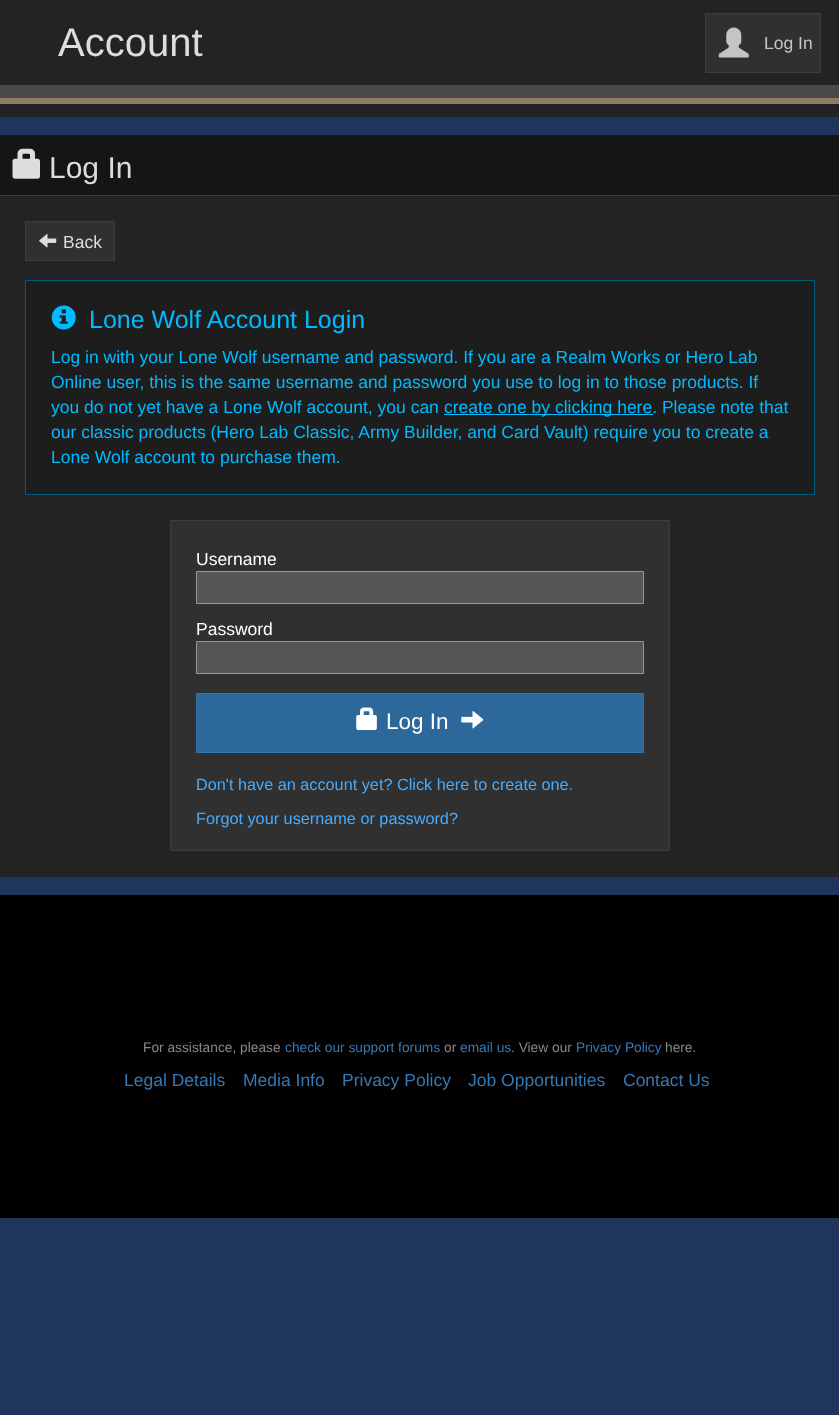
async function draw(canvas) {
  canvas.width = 839
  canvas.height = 1415
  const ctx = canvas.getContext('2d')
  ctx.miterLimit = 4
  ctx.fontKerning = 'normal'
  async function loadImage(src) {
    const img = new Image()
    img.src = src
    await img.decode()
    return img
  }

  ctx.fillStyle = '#20355b'
  ctx.fillRect(0, 0, 839, 1415)
  ctx.fillStyle = '#232324'
  ctx.fillRect(0, 0, 839, 117)
  ctx.font = '40px Liberation Sans'
  ctx.fillStyle = '#ddd'
  ctx.fillText('Account', 58, 56)
  ctx.fillStyle = '#303030'
  ctx.beginPath()
  ctx.rect(705.5, 13.5, 115, 59)
  ctx.fill()
  ctx.strokeStyle = '#3d3d3d'
  ctx.stroke()
  ctx.drawImage(await loadImage('image0.png'), 718, 27, 31, 31)
  ctx.font = '17.5px Liberation Sans'
  ctx.fillStyle = '#c4c4c4'
  ctx.fillText('Log In', 764, 49)
  ctx.fillStyle = '#494949'
  ctx.fillRect(0, 85, 839, 13)
  ctx.fillStyle = '#8c7c64'
  ctx.fillRect(0, 98, 839, 6)
  ctx.fillStyle = '#232324'
  ctx.fillRect(0, 196, 839, 681)
  ctx.fillStyle = '#151515'
  ctx.fillRect(0, 135, 839, 60)
  ctx.fillStyle = '#3b3b3b'
  ctx.fillRect(0, 195, 839, 1)
  ctx.drawImage(await loadImage('image1.png'), 12, 148, 28, 31)
  ctx.font = '30px Liberation Sans'
  ctx.fillStyle = '#ddd'
  ctx.fillText('Log In', 49, 178)
  ctx.fillStyle = '#303030'
  ctx.beginPath()
  ctx.rect(25.5, 221.5, 89, 39)
  ctx.fill()
  ctx.stroke()
  ctx.drawImage(await loadImage('image2.png'), 39, 234, 18, 14)
  ctx.font = '17.5px Liberation Sans'
  ctx.fillStyle = '#ddd'
  ctx.fillText('Back', 63, 248)
  ctx.fillStyle = '#1d1d1d'
  ctx.beginPath()
  ctx.rect(25.5, 280.5, 789, 214)
  ctx.fill()
  ctx.strokeStyle = '#005f7f'
  ctx.stroke()
  ctx.drawImage(await loadImage('image3.png'), 51, 305, 25, 25)
  ctx.font = '25px Liberation Sans'
  ctx.fillStyle = '#0bf'
  ctx.fillText('Lone Wolf Account Login', 89, 328)
  ctx.font = '17.5px Liberation Sans'
  ctx.fillText('Log in with your Lone Wolf username and password. If you are a Realm Works or Hero Lab', 51, 363)
  ctx.fillText('Online user, this is the same username and password you use to log in to those products. If', 51, 388)
  ctx.fillText('you do not yet have a Lone Wolf account, you can', 51, 413)
  ctx.fillRect(444, 414, 209, 1)
  ctx.fillText('create one by clicking here. Please note that', 444, 413)
  ctx.fillText('our classic products (Hero Lab Classic, Army Builder, and Card Vault) require you to create a', 51, 438)
  ctx.fillText('Lone Wolf account to purchase them.', 51, 463)
  ctx.fillStyle = '#303030'
  ctx.beginPath()
  ctx.rect(170.5, 520.5, 499, 330)
  ctx.fill()
  ctx.strokeStyle = '#3d3d3d'
  ctx.stroke()
  ctx.fillStyle = '#fff'
  ctx.fillText('Username', 196, 565)
  ctx.fillStyle = '#555'
  ctx.beginPath()
  ctx.rect(196.5, 571.5, 447, 32)
  ctx.fill()
  ctx.strokeStyle = '#999'
  ctx.stroke()
  ctx.fillStyle = '#fff'
  ctx.fillText('Password', 196, 635)
  ctx.fillStyle = '#555'
  ctx.beginPath()
  ctx.rect(196.5, 641.5, 447, 32)
  ctx.fill()
  ctx.stroke()
  ctx.fillStyle = '#2c6899'
  ctx.beginPath()
  ctx.rect(196.5, 693.5, 447, 59)
  ctx.fill()
  ctx.strokeStyle = '#3276ad'
  ctx.stroke()
  ctx.drawImage(await loadImage('image4.png'), 356, 707, 21, 23)
  ctx.font = '22.5px Liberation Sans'
  ctx.fillStyle = '#fff'
  ctx.fillText('Log In', 386, 729)
  ctx.drawImage(await loadImage('image5.png'), 461, 711, 23, 18)
  ctx.font = '16.25px Liberation Sans'
  ctx.fillStyle = '#47acff'
  ctx.fillText('Don\'t have an account yet? Click here to create one.', 196, 790)
  ctx.fillText('Forgot your username or password?', 196, 824)
  ctx.fillStyle = '#030001'
  ctx.fillRect(0, 895, 839, 323)
  ctx.font = '13.75px Liberation Sans'
  ctx.fillStyle = '#888'
  ctx.fillText('For assistance, please', 143, 1052)
  ctx.fillStyle = '#337ab7'
  ctx.fillText('check our support forums', 285, 1052)
  ctx.fillStyle = '#888'
  ctx.fillText('or', 444, 1052)
  ctx.fillStyle = '#337ab7'
  ctx.fillText('email us', 460, 1052)
  ctx.fillStyle = '#888'
  ctx.fillText('. View our', 511, 1052)
  ctx.fillStyle = '#337ab7'
  ctx.fillText('Privacy Policy', 576, 1052)
  ctx.fillStyle = '#888'
  ctx.fillText('here.', 665, 1052)
  ctx.font = '17.5px Liberation Sans'
  ctx.fillStyle = '#337ab7'
  ctx.fillText('Legal Details', 124, 1086)
  ctx.fillText('Media Info', 243, 1086)
  ctx.fillText('Privacy Policy', 342, 1086)
  ctx.fillText('Job Opportunities', 468, 1086)
  ctx.fillText('Contact Us', 623, 1086)
}

draw(document.querySelector('canvas'))
